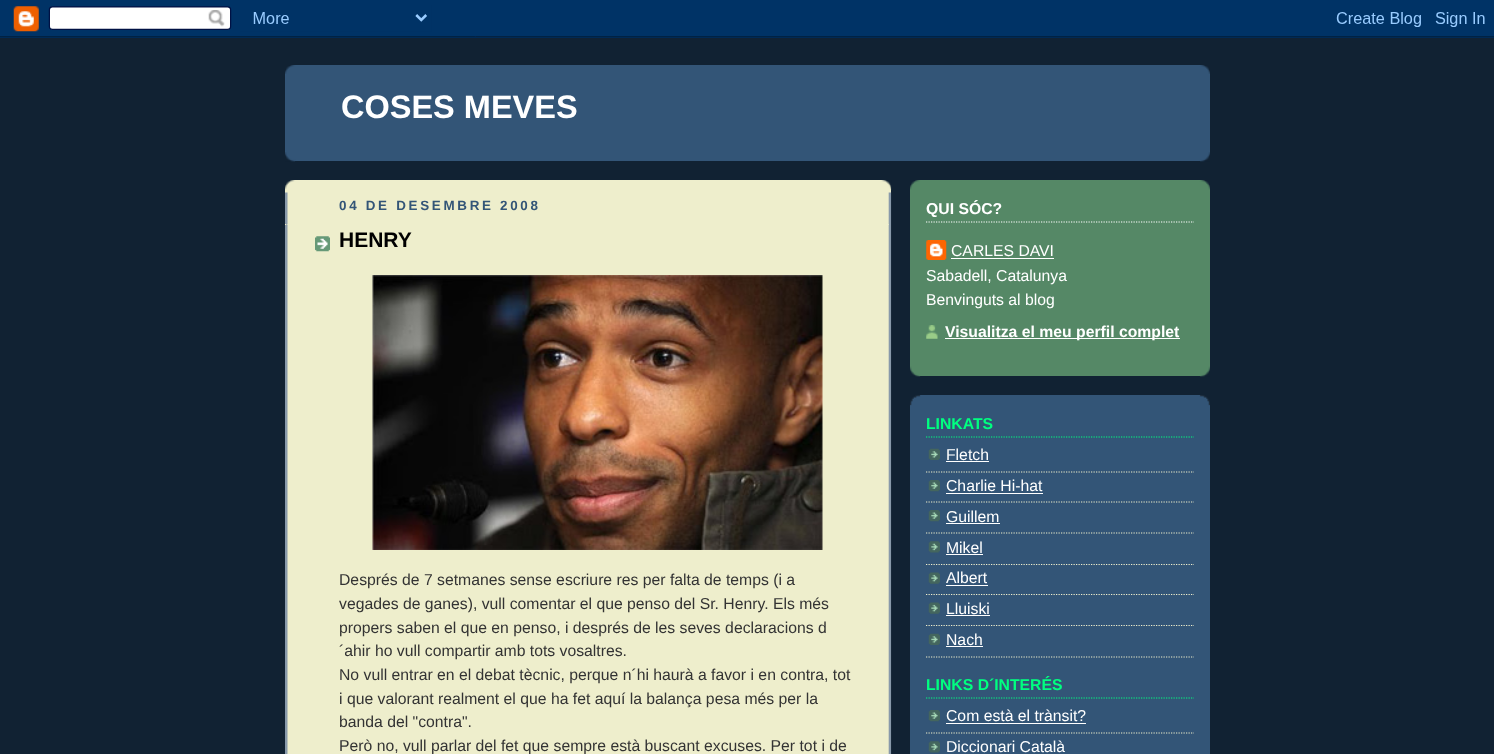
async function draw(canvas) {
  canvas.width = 1494
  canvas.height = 754
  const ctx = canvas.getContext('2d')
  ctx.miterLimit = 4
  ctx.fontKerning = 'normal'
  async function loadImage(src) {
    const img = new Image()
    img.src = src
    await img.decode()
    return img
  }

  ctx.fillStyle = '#123'
  ctx.fillRect(0, 0, 1494, 754)
  ctx.drawImage(await loadImage('image0.png'), 0, 0, 1494, 38)
  ctx.fillStyle = '#357'
  ctx.fillRect(285, 65, 925, 96)
  ctx.drawImage(await loadImage('image1.png'), 285, 65, 925, 9)
  ctx.drawImage(await loadImage('image2.png'), 285, 152, 925, 10)
  ctx.font = 'bold 32.5px Liberation Sans'
  ctx.fillStyle = '#fff'
  ctx.fillText('COSES MEVES', 341, 118)
  ctx.fillStyle = '#eec'
  ctx.fillRect(285, 180, 606, 574)
  ctx.drawImage(await loadImage('image3.png'), 285, 180, 607, 10)
  ctx.drawImage(await loadImage('image4.png'), 285, 192, 607, 562)
  ctx.letterSpacing = '2.7px'
  ctx.font = 'bold 13.4px Liberation Sans'
  ctx.fillStyle = '#357'
  ctx.fillText('04 DE DESEMBRE 2008', 339, 210)
  ctx.beginPath()
  ctx.moveTo(285, 224.5)
  ctx.lineTo(890, 224.5)
  ctx.strokeStyle = '#eec'
  ctx.lineWidth = 1.2
  ctx.setLineDash([1.25, 1.25])
  ctx.stroke()
  ctx.drawImage(await loadImage('image5.png'), 315, 236, 15, 16)
  ctx.letterSpacing = '0px'
  ctx.font = 'bold 21px Liberation Sans'
  ctx.fillStyle = '#000'
  ctx.fillText('HENRY', 339, 247)
  ctx.drawImage(await loadImage('image6.png'), 372, 275, 451, 275)
  ctx.font = '15.75px Liberation Sans'
  ctx.fillStyle = '#333'
  ctx.fillText('Després de 7 setmanes sense escriure res per falta de temps (i a', 339, 585)
  ctx.fillText('vegades de ganes), vull comentar el que penso del Sr. Henry. Els més', 339, 609)
  ctx.fillText('propers saben el que en penso, i després de les seves declaracions d', 339, 633)
  ctx.fillText('´ahir ho vull compartir amb tots vosaltres.', 339, 656)
  ctx.fillText('No vull entrar en el debat tècnic, perque n´hi haurà a favor i en contra, tot', 339, 680)
  ctx.fillText('i que valorant realment el que ha fet aquí la balança pesa més per la', 339, 704)
  ctx.fillText('banda del "contra".', 339, 727)
  ctx.fillText('Però no, vull parlar del fet que sempre està buscant excuses. Per tot i de', 339, 751)
  ctx.fillStyle = '#586'
  ctx.fillRect(910, 180, 300, 196)
  ctx.drawImage(await loadImage('image7.png'), 910, 366, 300, 11)
  ctx.drawImage(await loadImage('image8.png'), 910, 180, 300, 10)
  ctx.beginPath()
  ctx.moveTo(926, 222)
  ctx.lineTo(1194, 222)
  ctx.strokeStyle = '#fff'
  ctx.stroke()
  ctx.font = 'bold 15.75px Liberation Sans'
  ctx.fillStyle = '#fff'
  ctx.fillText('QUI SÓC?', 926, 214)
  ctx.drawImage(await loadImage('image9.png'), 926, 240, 21, 20)
  ctx.font = '15.75px Liberation Sans'
  ctx.fillText('CARLES DAVI', 951, 256)
  ctx.fillRect(951, 258, 103, 1)
  ctx.fillText('Sabadell, Catalunya', 926, 281)
  ctx.fillText('Benvinguts al blog', 926, 305)
  ctx.drawImage(await loadImage('image10.png'), 926, 325, 12, 14)
  ctx.fillRect(945, 338, 235, 1)
  ctx.font = 'bold 15.75px Liberation Sans'
  ctx.fillText('Visualitza el meu perfil complet', 945, 337)
  ctx.fillStyle = '#357'
  ctx.fillRect(910, 395, 300, 359)
  ctx.drawImage(await loadImage('image11.png'), 910, 395, 300, 11)
  ctx.beginPath()
  ctx.moveTo(926, 437)
  ctx.lineTo(1194, 437)
  ctx.strokeStyle = '#00ff80'
  ctx.stroke()
  ctx.fillStyle = '#00ff80'
  ctx.fillText('LINKATS', 926, 429)
  ctx.drawImage(await loadImage('image12.png'), 928, 448, 12, 12)
  ctx.beginPath()
  ctx.moveTo(926, 472)
  ctx.lineTo(1194, 472)
  ctx.strokeStyle = '#eec'
  ctx.stroke()
  ctx.font = '15.75px Liberation Sans'
  ctx.fillStyle = '#fff'
  ctx.fillText('Fletch', 946, 460)
  ctx.fillRect(946, 461, 43, 1)
  ctx.drawImage(await loadImage('image13.png'), 928, 480, 12, 12)
  ctx.beginPath()
  ctx.moveTo(926, 502)
  ctx.lineTo(1194, 502)
  ctx.stroke()
  ctx.fillText('Charlie Hi-hat', 946, 491)
  ctx.fillRect(946, 493, 97, 1)
  ctx.drawImage(await loadImage('image13.png'), 928, 510, 12, 12)
  ctx.beginPath()
  ctx.moveTo(926, 533)
  ctx.lineTo(1194, 533)
  ctx.stroke()
  ctx.fillText('Guillem', 946, 522)
  ctx.fillRect(946, 523, 54, 1)
  ctx.drawImage(await loadImage('image14.png'), 928, 541, 12, 12)
  ctx.beginPath()
  ctx.moveTo(926, 564.5)
  ctx.lineTo(1194, 564.5)
  ctx.stroke()
  ctx.fillText('Mikel', 946, 553)
  ctx.fillRect(946, 554, 37, 1)
  ctx.drawImage(await loadImage('image15.png'), 928, 572, 12, 12)
  ctx.beginPath()
  ctx.moveTo(926, 594.5)
  ctx.lineTo(1194, 594.5)
  ctx.stroke()
  ctx.fillText('Albert', 946, 583)
  ctx.fillRect(946, 585, 42, 1)
  ctx.drawImage(await loadImage('image15.png'), 928, 602, 12, 12)
  ctx.beginPath()
  ctx.moveTo(926, 625.5)
  ctx.lineTo(1194, 625.5)
  ctx.stroke()
  ctx.fillText('Lluiski', 946, 614)
  ctx.fillRect(946, 615, 44, 1)
  ctx.drawImage(await loadImage('image12.png'), 928, 633, 12, 12)
  ctx.beginPath()
  ctx.moveTo(926, 657)
  ctx.lineTo(1194, 657)
  ctx.stroke()
  ctx.fillText('Nach', 946, 645)
  ctx.fillRect(946, 646, 37, 1)
  ctx.beginPath()
  ctx.moveTo(926, 698)
  ctx.lineTo(1194, 698)
  ctx.strokeStyle = '#00ff80'
  ctx.stroke()
  ctx.font = 'bold 15.75px Liberation Sans'
  ctx.fillStyle = '#00ff80'
  ctx.fillText('LINKS D´INTERÉS', 926, 690)
  ctx.drawImage(await loadImage('image13.png'), 928, 710, 12, 12)
  ctx.beginPath()
  ctx.moveTo(926, 733)
  ctx.lineTo(1194, 733)
  ctx.strokeStyle = '#eec'
  ctx.stroke()
  ctx.font = '15.75px Liberation Sans'
  ctx.fillStyle = '#fff'
  ctx.fillText('Com està el trànsit?', 946, 721)
  ctx.fillRect(946, 723, 140, 1)
  ctx.drawImage(await loadImage('image14.png'), 928, 741, 12, 12)
  ctx.fillText('Diccionari Català', 946, 752)
}

draw(document.querySelector('canvas'))
